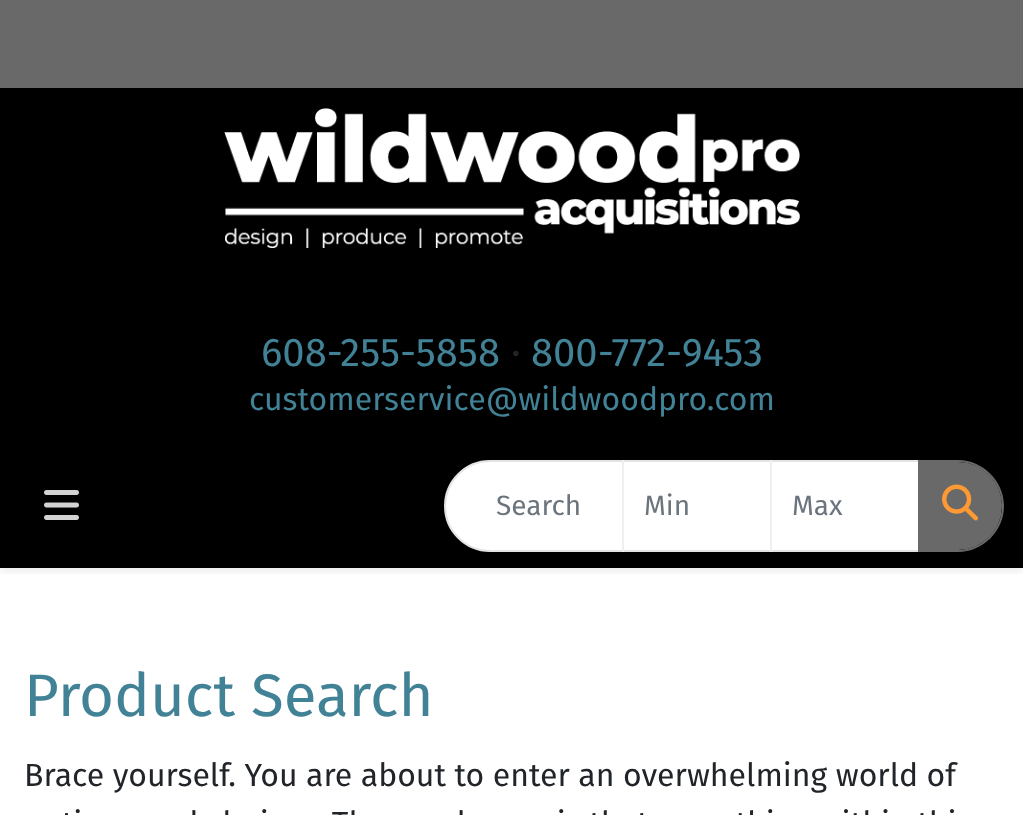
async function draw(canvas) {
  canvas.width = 1023
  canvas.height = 815
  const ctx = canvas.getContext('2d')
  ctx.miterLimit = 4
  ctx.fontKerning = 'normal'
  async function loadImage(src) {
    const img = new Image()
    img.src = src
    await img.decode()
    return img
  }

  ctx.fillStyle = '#fff'
  ctx.fillRect(0, 0, 1023, 815)
  ctx.fillStyle = '#000'
  ctx.fillRect(0, 88, 1023, 480)
  ctx.fillStyle = '#696969'
  ctx.fillRect(0, 0, 1023, 88)
  ctx.drawImage(await loadImage('image0.png'), 224, 108, 576, 140)
  ctx.font = '40px Fira Sans'
  ctx.fillStyle = '#428296'
  ctx.fillText('608-255-5858', 261, 366)
  ctx.fillStyle = '#212529'
  ctx.fillText('·', 511, 366)
  ctx.fillStyle = '#428296'
  ctx.fillText('800-772-9453', 531, 366)
  ctx.font = '32px Fira Sans'
  ctx.fillText('customerservice@wildwoodpro.com', 249, 410)
  ctx.save()
  ctx.beginPath()
  ctx.rect(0, 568, 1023, 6)
  ctx.clip()
  ctx.fillStyle = '#00000012'
  ctx.filter = 'blur(4px)'
  ctx.beginPath()
  ctx.rect(0, 448, 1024, 124)
  ctx.fill()
  ctx.filter = 'none'
  ctx.restore()
  ctx.drawImage(await loadImage('image1.png'), 44, 490, 35, 30)
  ctx.fillStyle = '#fff'
  ctx.beginPath()
  ctx.roundRect(445, 461, 178, 90, [45, 0, 0, 45])
  ctx.fill()
  ctx.strokeStyle = '#e4e4e4'
  ctx.lineWidth = 2
  ctx.stroke()
  ctx.font = '28px Fira Sans'
  ctx.fillStyle = '#6c757d'
  ctx.fillText('Search', 496, 515)
  ctx.fillStyle = '#fff'
  ctx.fillRect(624, 462, 146, 88)
  ctx.fillStyle = '#e4e4e4'
  ctx.fillRect(622, 460, 298, 2)
  ctx.fillRect(622, 550, 298, 2)
  ctx.fillStyle = '#efefef'
  ctx.fillRect(622, 460, 2, 92)
  ctx.fillStyle = '#6c757d'
  ctx.fillText('Min', 644, 515)
  ctx.fillStyle = '#fff'
  ctx.fillRect(772, 462, 146, 88)
  ctx.fillStyle = '#efefef'
  ctx.fillRect(770, 460, 2, 92)
  ctx.fillStyle = '#6c757d'
  ctx.fillText('Max', 792, 515)
  ctx.fillStyle = '#696969'
  ctx.beginPath()
  ctx.roundRect(918, 462, 84, 88, [0, 44, 44, 0])
  ctx.fill()
  ctx.beginPath()
  ctx.moveTo(918, 460)
  ctx.lineTo(958, 460)
  ctx.bezierCurveTo(983, 460, 1004, 481, 1004, 506)
  ctx.bezierCurveTo(1004, 531, 983, 552, 958, 552)
  ctx.lineTo(918, 552)
  ctx.closePath()
  ctx.moveTo(918, 462)
  ctx.lineTo(958, 462)
  ctx.bezierCurveTo(982, 462, 1002, 482, 1002, 506)
  ctx.bezierCurveTo(1002, 530, 982, 550, 958, 550)
  ctx.lineTo(918, 550)
  ctx.closePath()
  ctx.fill('evenodd')
  ctx.drawImage(await loadImage('image2.png'), 942, 484, 36, 37)
  ctx.drawImage(await loadImage('image3.png'), 27, 671, 931, 144)
}

draw(document.querySelector('canvas'))
